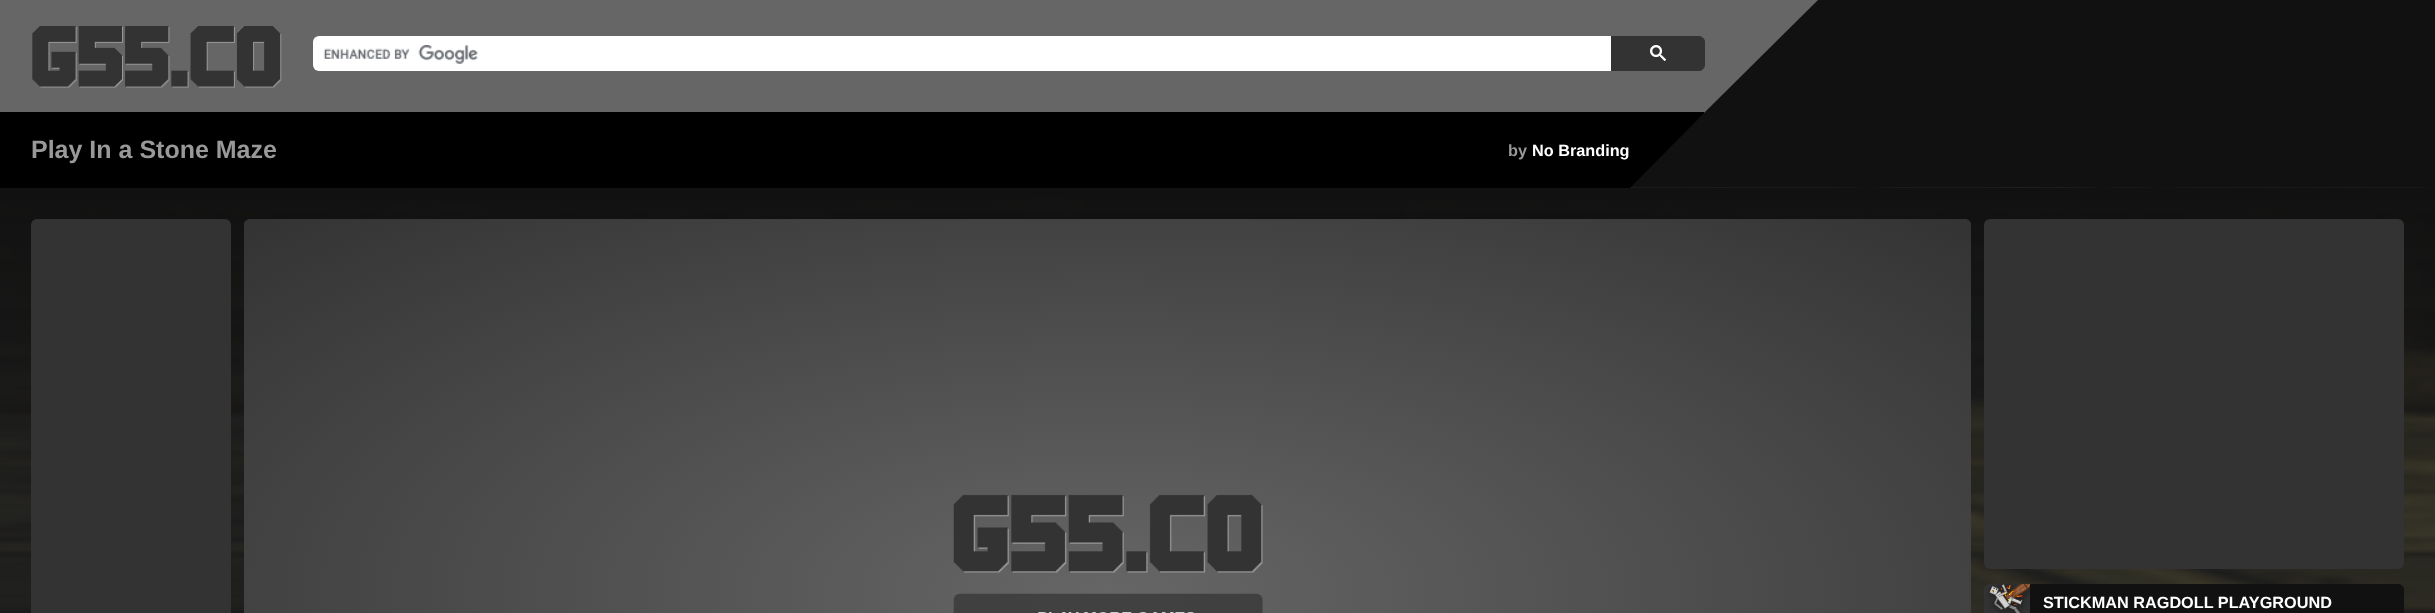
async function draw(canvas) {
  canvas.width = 2435
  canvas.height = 613
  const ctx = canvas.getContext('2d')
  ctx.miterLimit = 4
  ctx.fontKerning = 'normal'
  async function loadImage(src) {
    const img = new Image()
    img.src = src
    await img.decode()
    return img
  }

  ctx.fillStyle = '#111'
  ctx.fillRect(0, 0, 2435, 613)
  ctx.fillStyle = '#666'
  ctx.fillRect(0, 0, 1705, 113)
  ctx.drawImage(await loadImage('image0.png'), 32, 26, 250, 62)
  ctx.fillStyle = '#fff'
  ctx.beginPath()
  ctx.roundRect(313, 36, 1298, 35, [6, 0, 0, 6])
  ctx.fill()
  ctx.drawImage(await loadImage('image1.png'), 323, 45, 155, 19)
  ctx.fillStyle = '#333'
  ctx.beginPath()
  ctx.roundRect(1611.5, 36.5, 93, 34, [0, 5.5, 5.5, 0])
  ctx.fill()
  ctx.strokeStyle = '#333'
  ctx.stroke()
  ctx.drawImage(await loadImage('image2.png'), 1650, 45, 16, 16)
  ctx.fillStyle = '#666'
  ctx.beginPath()
  ctx.moveTo(1705, 112)
  ctx.lineTo(1705, 0)
  ctx.lineTo(1818, 0)
  ctx.closePath()
  ctx.fill()
  ctx.drawImage(await loadImage('image3.png'), 0, 187, 2435, 426)
  ctx.fillStyle = '#000'
  ctx.beginPath()
  ctx.moveTo(0, 112)
  ctx.lineTo(1705, 112)
  ctx.lineTo(1630, 188)
  ctx.lineTo(0, 188)
  ctx.closePath()
  ctx.fill()
  ctx.font = 'bold 25px Liberation Sans'
  ctx.fillStyle = '#999'
  ctx.fillText('Play In a Stone Maze', 31, 158)
  ctx.font = 'bold 16.25px Liberation Sans'
  ctx.fillText('by', 1508, 156)
  ctx.fillStyle = '#fff'
  ctx.fillText('No Branding', 1532, 156)
  ctx.fillStyle = '#333'
  ctx.beginPath()
  ctx.roundRect(31, 219, 200, 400, 6)
  ctx.fill()
  ctx.drawImage(await loadImage('image4.png'), 244, 219, 1727, 394)
  ctx.beginPath()
  ctx.roundRect(1984, 219, 420, 350, 6)
  ctx.fill()
  ctx.fillStyle = '#111'
  ctx.beginPath()
  ctx.roundRect(1984, 584, 420, 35, 6)
  ctx.fill()
  ctx.drawImage(await loadImage('image5.png'), 1984, 583, 46, 30)
  ctx.fillStyle = '#fff'
  ctx.fillText('STICKMAN RAGDOLL PLAYGROUND', 2043, 608)
}

draw(document.querySelector('canvas'))
